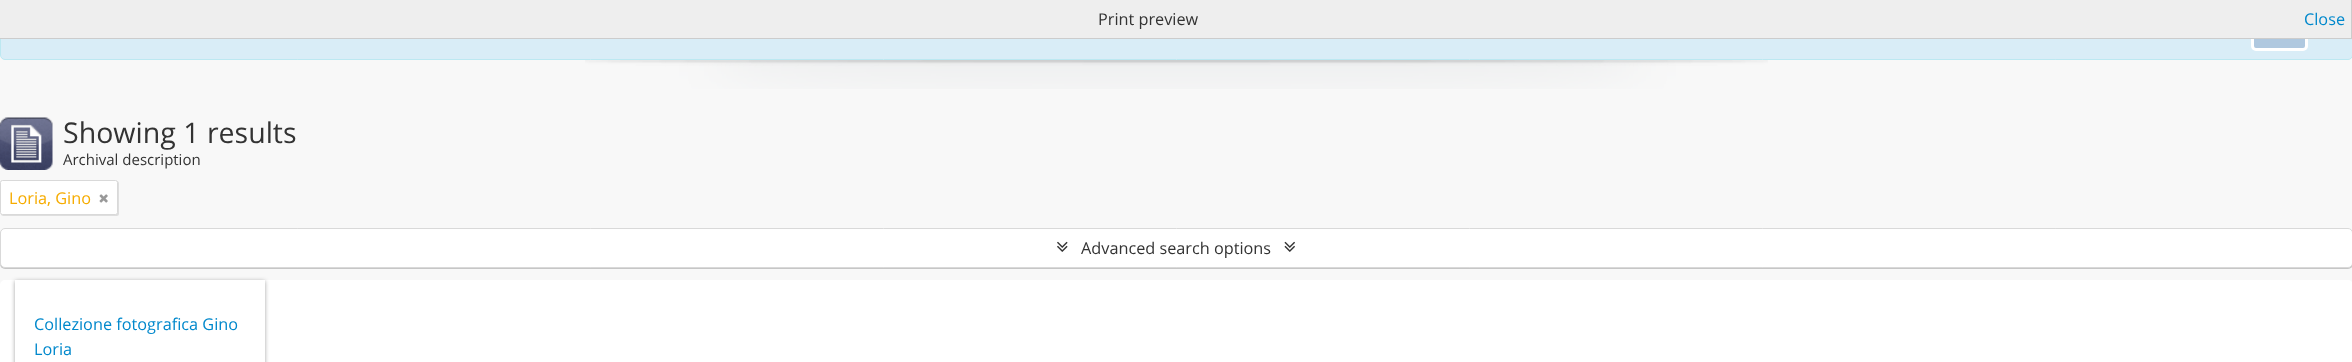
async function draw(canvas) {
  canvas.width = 2352
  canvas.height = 362
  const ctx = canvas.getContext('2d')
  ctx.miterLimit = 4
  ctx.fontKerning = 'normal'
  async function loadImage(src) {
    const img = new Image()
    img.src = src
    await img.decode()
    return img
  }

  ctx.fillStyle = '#f8f8f8'
  ctx.fillRect(0, 0, 2352, 362)
  ctx.fillStyle = '#d9edf7'
  ctx.beginPath()
  ctx.roundRect(0.5, 0.5, 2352, 59, 4.5)
  ctx.fill()
  ctx.strokeStyle = '#bce8f1'
  ctx.stroke()
  ctx.fillStyle = '#afc8df'
  ctx.beginPath()
  ctx.roundRect(2252.5, 12.5, 54, 37, 3.5)
  ctx.fill()
  ctx.strokeStyle = '#fff'
  ctx.lineWidth = 3
  ctx.stroke()
  ctx.drawImage(await loadImage('image0.png'), 585, 60, 1183, 29)
  ctx.fillStyle = '#eee'
  ctx.fillRect(0, 0, 2351, 38)
  ctx.fillStyle = '#ccc'
  ctx.fillRect(2351, 0, 1, 39)
  ctx.fillRect(0, 38, 2352, 1)
  ctx.font = '16.25px Open Sans'
  ctx.fillStyle = '#333'
  ctx.fillText('Print preview', 1098, 25)
  ctx.fillStyle = '#08c'
  ctx.fillText('Close', 2304, 25)
  ctx.drawImage(await loadImage('image1.png'), 0, 117, 53, 53)
  ctx.font = '28.5px Open Sans'
  ctx.fillStyle = '#333'
  ctx.fillText('Showing 1 results', 63, 143)
  ctx.font = '15px Open Sans'
  ctx.fillText('Archival description', 63, 165)
  ctx.fillStyle = '#0000001a'
  ctx.filter = 'blur(0.5px)'
  ctx.beginPath()
  ctx.roundRect(1, 181, 118, 35, 2.5)
  ctx.fill()
  ctx.filter = 'none'
  ctx.fillStyle = '#fff'
  ctx.beginPath()
  ctx.roundRect(0.5, 180.5, 117, 34, 2)
  ctx.fill()
  ctx.strokeStyle = '#d9d9d9'
  ctx.lineWidth = 1
  ctx.stroke()
  ctx.font = '16.25px Open Sans'
  ctx.fillStyle = '#f6ac00'
  ctx.fillText('Loria, Gino', 9, 204)
  ctx.drawImage(await loadImage('image2.png'), 99, 194, 9, 9)
  ctx.fillStyle = '#00000033'
  ctx.filter = 'blur(0.5px)'
  ctx.beginPath()
  ctx.roundRect(0, 229, 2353, 40, 5)
  ctx.fill()
  ctx.filter = 'none'
  ctx.fillStyle = '#fff'
  ctx.beginPath()
  ctx.roundRect(0.5, 228.5, 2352, 39, 4.5)
  ctx.fill()
  ctx.stroke()
  ctx.drawImage(await loadImage('image3.png'), 1057, 241, 11, 11)
  ctx.fillStyle = '#333'
  ctx.fillText('Advanced search options', 1081, 254)
  ctx.drawImage(await loadImage('image4.png'), 1284, 241, 11, 11)
  ctx.fillStyle = '#fff'
  ctx.beginPath()
  ctx.roundRect(0, 280, 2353, 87, 5)
  ctx.fill()
  ctx.save()
  ctx.beginPath()
  ctx.moveTo(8, 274)
  ctx.lineTo(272, 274)
  ctx.lineTo(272, 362)
  ctx.lineTo(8, 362)
  ctx.closePath()
  ctx.moveTo(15, 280)
  ctx.lineTo(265, 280)
  ctx.lineTo(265, 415)
  ctx.lineTo(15, 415)
  ctx.closePath()
  ctx.clip('evenodd')
  ctx.fillStyle = '#19191966'
  ctx.filter = 'blur(2px)'
  ctx.beginPath()
  ctx.rect(15, 281, 250, 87)
  ctx.fill()
  ctx.filter = 'none'
  ctx.restore()
  ctx.fillStyle = '#08c'
  ctx.fillText('Collezione fotografica Gino', 34, 330)
  ctx.fillText('Loria', 34, 355)
}

draw(document.querySelector('canvas'))
